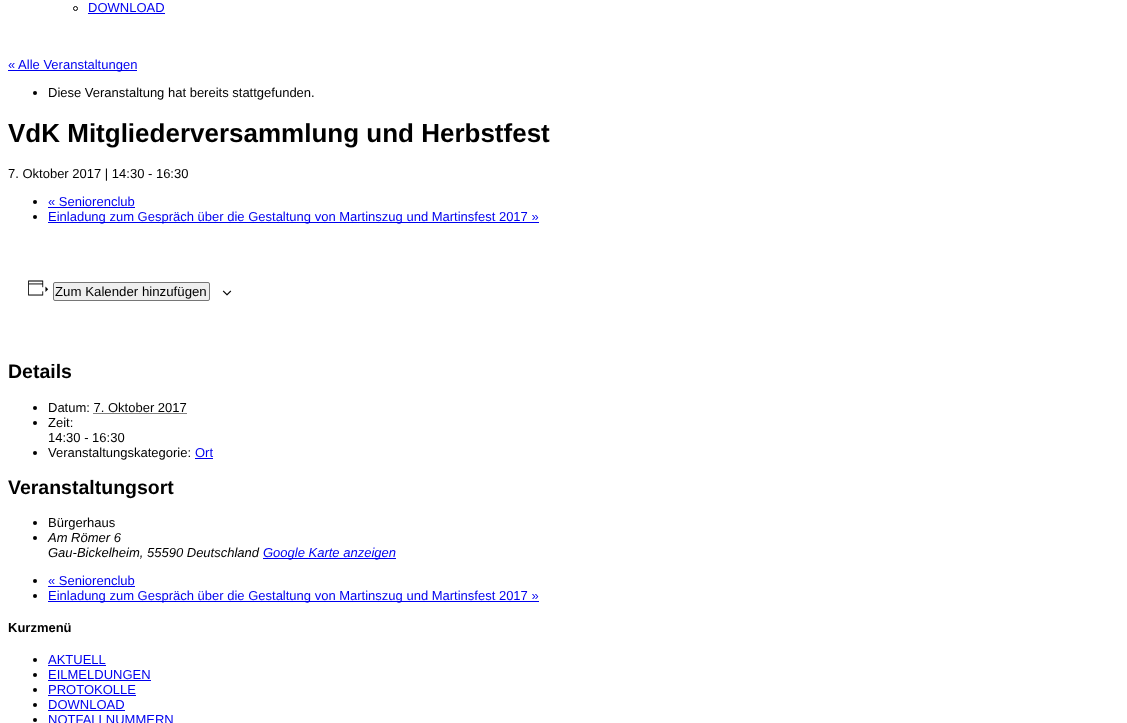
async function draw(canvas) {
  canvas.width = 1127
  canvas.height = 723
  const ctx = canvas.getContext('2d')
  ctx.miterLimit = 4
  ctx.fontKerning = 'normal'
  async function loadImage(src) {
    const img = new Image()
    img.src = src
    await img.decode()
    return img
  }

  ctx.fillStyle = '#fff'
  ctx.fillRect(0, 0, 1127, 723)
  ctx.beginPath()
  ctx.arc(75.5, 8.5, 2, 0, 2 * Math.PI)
  ctx.strokeStyle = '#000'
  ctx.stroke()
  ctx.font = '13px Liberation Sans'
  ctx.fillStyle = '#00e'
  ctx.fillText('DOWNLOAD', 88, 12)
  ctx.fillRect(88, 13, 77, 1)
  ctx.fillRect(8, 70, 129, 1)
  ctx.fillText('« Alle Veranstaltungen', 8, 69)
  ctx.fillStyle = '#000'
  ctx.beginPath()
  ctx.arc(35, 93, 2, 0, 2 * Math.PI)
  ctx.fill()
  ctx.fillText('Diese Veranstaltung hat bereits stattgefunden.', 48, 97)
  ctx.font = 'bold 26px Liberation Sans'
  ctx.fillText('VdK Mitgliederversammlung und Herbstfest', 8, 142)
  ctx.font = '13px Liberation Sans'
  ctx.fillText('7. Oktober 2017 | 14:30 - 16:30', 8, 178)
  ctx.beginPath()
  ctx.arc(35, 202, 2, 0, 2 * Math.PI)
  ctx.fill()
  ctx.fillStyle = '#00e'
  ctx.fillText('« Seniorenclub', 48, 206)
  ctx.fillRect(48, 207, 87, 1)
  ctx.fillStyle = '#000'
  ctx.beginPath()
  ctx.arc(35, 217, 2, 0, 2 * Math.PI)
  ctx.fill()
  ctx.fillStyle = '#00e'
  ctx.fillRect(48, 222, 491, 1)
  ctx.fillText('Einladung zum Gespräch über die Gestaltung von Martinszug und Martinsfest 2017 »', 48, 221)
  ctx.drawImage(await loadImage('image0.png'), 28, 280, 21, 16)
  ctx.fillStyle = '#efefef'
  ctx.beginPath()
  ctx.roundRect(53.5, 282.5, 156, 18, 1.5)
  ctx.fill()
  ctx.strokeStyle = '#767676'
  ctx.stroke()
  ctx.font = '13.25px Liberation Sans'
  ctx.fillStyle = '#000'
  ctx.fillText('Zum Kalender hinzufügen', 55, 296)
  ctx.drawImage(await loadImage('image1.png'), 222, 290, 10, 6)
  ctx.font = 'bold 19.5px Liberation Sans'
  ctx.fillText('Details', 8, 378)
  ctx.beginPath()
  ctx.arc(35, 408, 2, 0, 2 * Math.PI)
  ctx.fill()
  ctx.font = '13px Liberation Sans'
  ctx.fillText('Datum: 7. Oktober 2017', 48, 412)
  ctx.beginPath()
  ctx.moveTo(93.5, 413.5)
  ctx.lineTo(187, 413.5)
  ctx.strokeStyle = '#000'
  ctx.setLineDash([1, 1])
  ctx.stroke()
  ctx.beginPath()
  ctx.arc(35, 423, 2, 0, 2 * Math.PI)
  ctx.fill()
  ctx.fillText('Zeit:', 48, 427)
  ctx.fillText('14:30 - 16:30', 48, 442)
  ctx.beginPath()
  ctx.arc(35, 453, 2, 0, 2 * Math.PI)
  ctx.fill()
  ctx.fillText('Veranstaltungskategorie:', 48, 457)
  ctx.fillStyle = '#00e'
  ctx.fillText('Ort', 195, 457)
  ctx.fillRect(195, 458, 18, 1)
  ctx.font = 'bold 19.5px Liberation Sans'
  ctx.fillStyle = '#000'
  ctx.fillText('Veranstaltungsort', 8, 494)
  ctx.beginPath()
  ctx.arc(35, 523, 2, 0, 2 * Math.PI)
  ctx.fill()
  ctx.font = '13px Liberation Sans'
  ctx.fillText('Bürgerhaus', 48, 527)
  ctx.beginPath()
  ctx.arc(35, 538, 2, 0, 2 * Math.PI)
  ctx.fill()
  ctx.font = 'italic 13px Liberation Sans'
  ctx.fillText('Am Römer 6', 48, 542)
  ctx.fillText('Gau-Bickelheim, 55590 Deutschland', 48, 557)
  ctx.fillStyle = '#00e'
  ctx.fillRect(263, 558, 133, 1)
  ctx.fillText('Google Karte anzeigen', 263, 557)
  ctx.fillStyle = '#000'
  ctx.beginPath()
  ctx.arc(35, 581, 2, 0, 2 * Math.PI)
  ctx.fill()
  ctx.font = '13px Liberation Sans'
  ctx.fillStyle = '#00e'
  ctx.fillText('« Seniorenclub', 48, 585)
  ctx.fillRect(48, 586, 87, 1)
  ctx.fillStyle = '#000'
  ctx.beginPath()
  ctx.arc(35, 596, 2, 0, 2 * Math.PI)
  ctx.fill()
  ctx.fillStyle = '#00e'
  ctx.fillRect(48, 601, 491, 1)
  ctx.fillText('Einladung zum Gespräch über die Gestaltung von Martinszug und Martinsfest 2017 »', 48, 600)
  ctx.font = 'bold 13px Liberation Sans'
  ctx.fillStyle = '#000'
  ctx.fillText('Kurzmenü', 8, 632)
  ctx.beginPath()
  ctx.arc(35, 660, 2, 0, 2 * Math.PI)
  ctx.fill()
  ctx.font = '13px Liberation Sans'
  ctx.fillStyle = '#00e'
  ctx.fillText('AKTUELL', 48, 664)
  ctx.fillRect(48, 665, 58, 1)
  ctx.fillStyle = '#000'
  ctx.beginPath()
  ctx.arc(35, 675, 2, 0, 2 * Math.PI)
  ctx.fill()
  ctx.fillStyle = '#00e'
  ctx.fillText('EILMELDUNGEN', 48, 679)
  ctx.fillRect(48, 680, 103, 1)
  ctx.fillStyle = '#000'
  ctx.beginPath()
  ctx.arc(35, 690, 2, 0, 2 * Math.PI)
  ctx.fill()
  ctx.fillStyle = '#00e'
  ctx.fillText('PROTOKOLLE', 48, 694)
  ctx.fillRect(48, 695, 88, 1)
  ctx.fillStyle = '#000'
  ctx.beginPath()
  ctx.arc(35, 705, 2, 0, 2 * Math.PI)
  ctx.fill()
  ctx.fillStyle = '#00e'
  ctx.fillText('DOWNLOAD', 48, 709)
  ctx.fillRect(48, 710, 77, 1)
  ctx.fillStyle = '#000'
  ctx.beginPath()
  ctx.arc(35, 720, 2, 0, 2 * Math.PI)
  ctx.fill()
  ctx.fillStyle = '#00e'
  ctx.fillText('NOTFALLNUMMERN', 48, 724)
}

draw(document.querySelector('canvas'))
